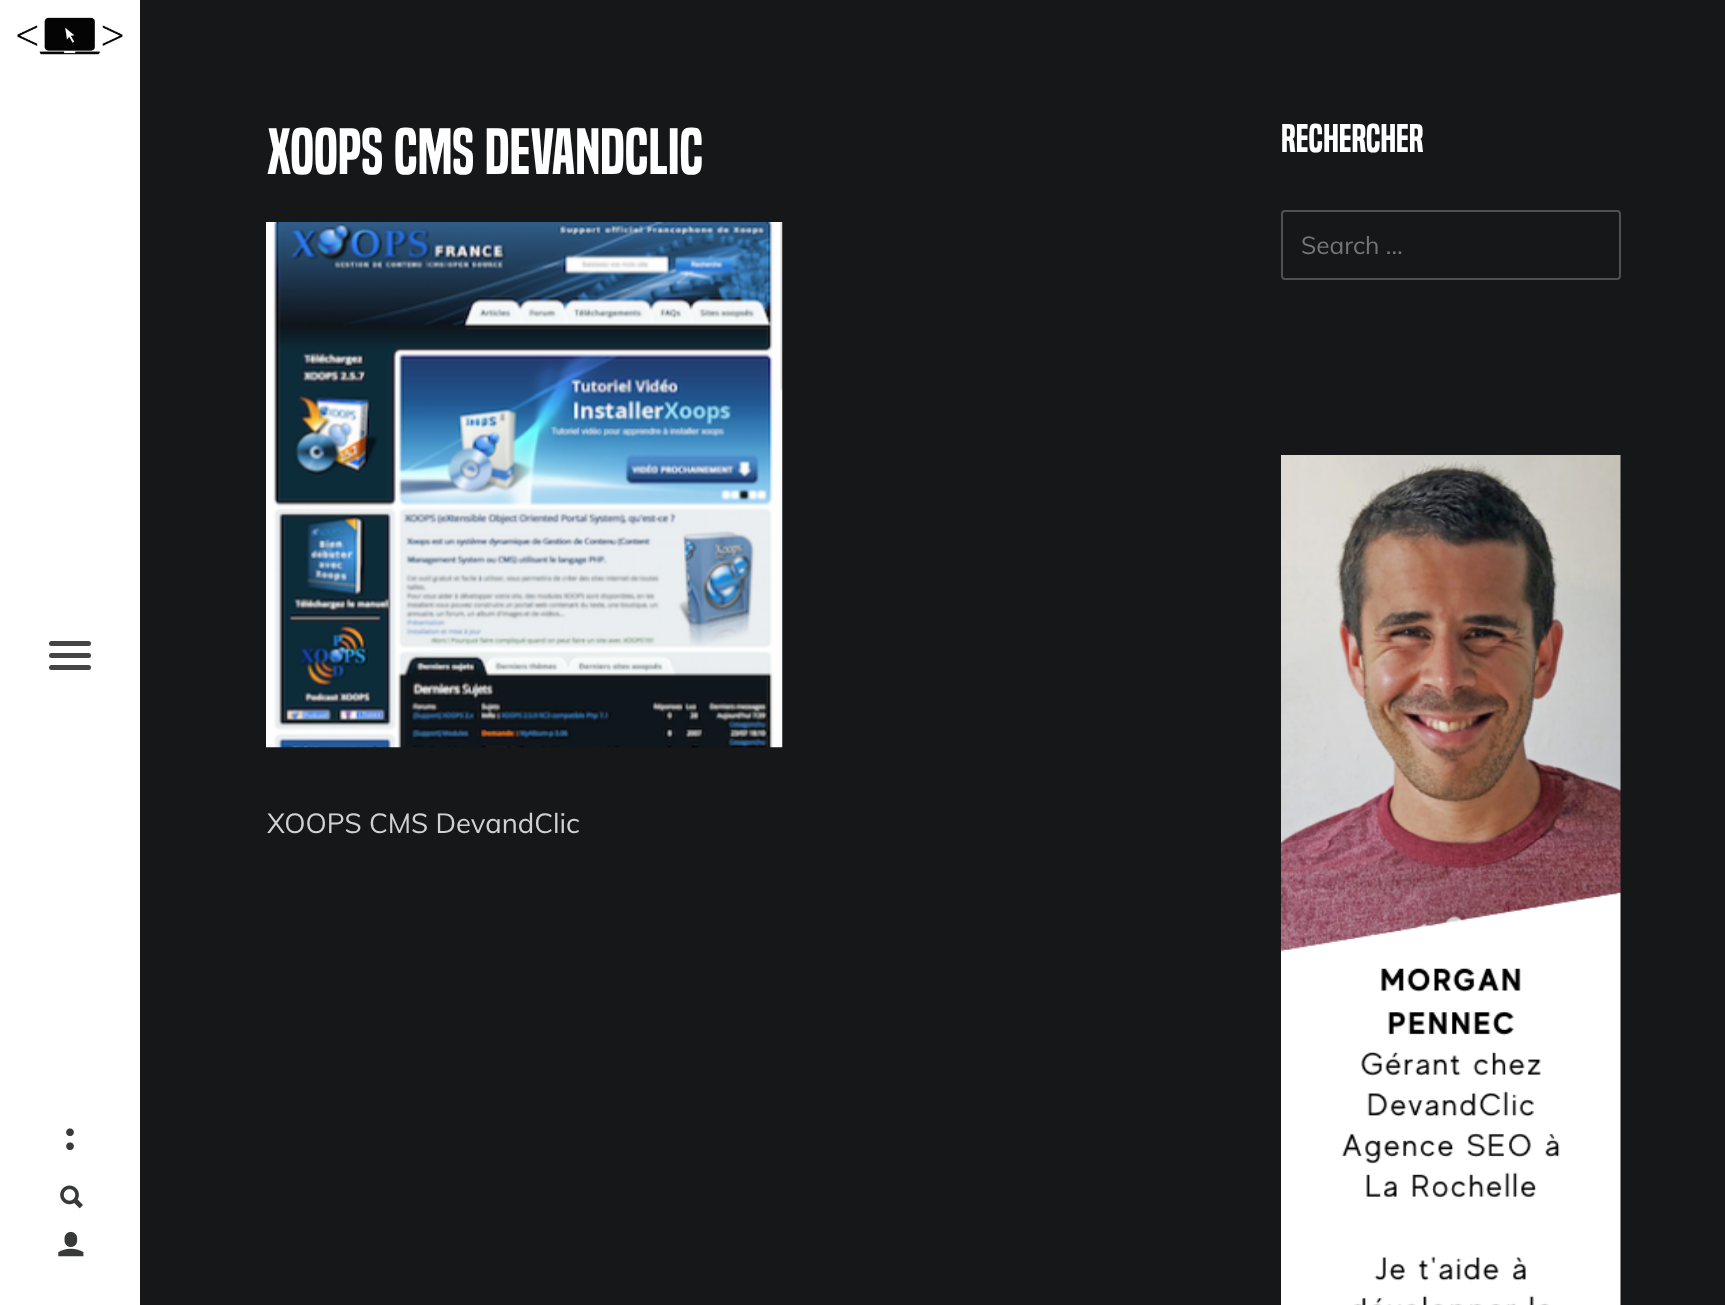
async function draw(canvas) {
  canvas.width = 1725
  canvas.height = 1305
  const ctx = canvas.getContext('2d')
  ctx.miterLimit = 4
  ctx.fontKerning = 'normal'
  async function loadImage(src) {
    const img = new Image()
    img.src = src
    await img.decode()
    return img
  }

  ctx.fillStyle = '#161718'
  ctx.fillRect(0, 0, 1725, 1305)
  ctx.fillStyle = '#fff'
  ctx.fillRect(0, 0, 140, 1305)
  ctx.drawImage(await loadImage('image0.png'), 17, 17, 106, 38)
  ctx.fillStyle = '#454546'
  ctx.beginPath()
  ctx.roundRect(49, 641, 42, 5, 2.5)
  ctx.fill()
  ctx.beginPath()
  ctx.roundRect(49, 653, 42, 5, 2.5)
  ctx.fill()
  ctx.beginPath()
  ctx.roundRect(49, 665, 42, 5, 2.5)
  ctx.fill()
  ctx.drawImage(await loadImage('image1.png'), 66, 1128, 8, 23)
  ctx.drawImage(await loadImage('image2.png'), 60, 1185, 23, 24)
  ctx.drawImage(await loadImage('image3.png'), 58, 1231, 26, 26)
  ctx.font = '60.5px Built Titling'
  ctx.fillStyle = '#fff'
  ctx.fillText('XOOPS CMS DevandClic', 267, 174)
  ctx.drawImage(await loadImage('image4.png'), 266, 222, 517, 526)
  ctx.font = '27.5px Muli'
  ctx.fillStyle = '#d0d1d1'
  ctx.fillText('XOOPS CMS DevandClic', 267, 833)
  ctx.font = '37px Built Titling'
  ctx.fillStyle = '#fff'
  ctx.fillText('Rechercher', 1281, 152)
  ctx.beginPath()
  ctx.roundRect(1282, 211, 338, 68, 3)
  ctx.strokeStyle = '#505051'
  ctx.lineWidth = 2
  ctx.stroke()
  ctx.font = '24.5px Muli'
  ctx.fillStyle = '#757575'
  ctx.fillText('Search …', 1301, 254)
  ctx.drawImage(await loadImage('image5.png'), 1281, 455, 340, 850)
}

draw(document.querySelector('canvas'))
